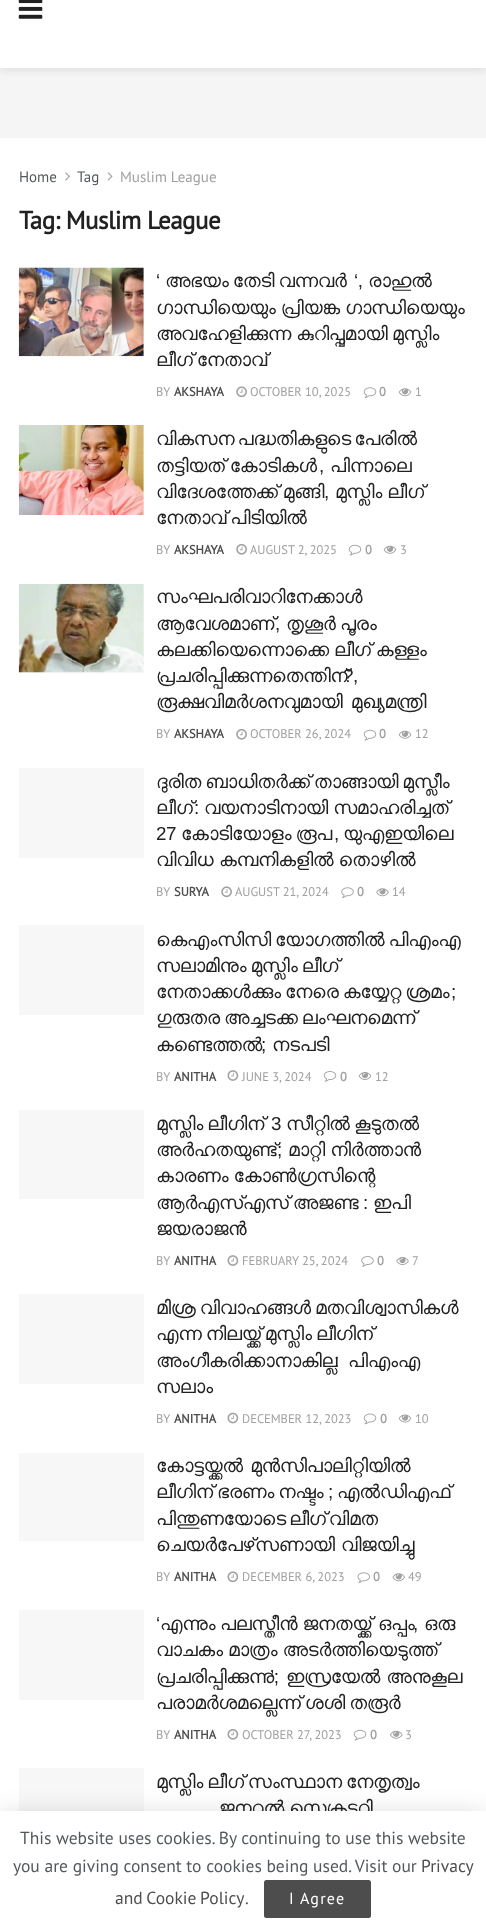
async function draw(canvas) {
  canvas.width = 486
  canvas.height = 1929
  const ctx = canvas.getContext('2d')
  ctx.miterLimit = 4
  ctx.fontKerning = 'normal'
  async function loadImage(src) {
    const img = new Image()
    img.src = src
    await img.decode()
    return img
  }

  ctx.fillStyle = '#fff'
  ctx.fillRect(0, 0, 486, 1929)
  ctx.fillStyle = '#f5f5f5'
  ctx.fillRect(0, 68, 486, 70)
  ctx.fillStyle = '#0000001a'
  ctx.filter = 'blur(4px)'
  ctx.beginPath()
  ctx.rect(0, 3, 486, 67)
  ctx.fill()
  ctx.filter = 'none'
  ctx.fillStyle = '#fff'
  ctx.fillRect(0, 0, 486, 68)
  ctx.drawImage(await loadImage('image0.png'), 18, 0, 25, 19)
  ctx.font = '15px PT Sans'
  ctx.fillStyle = '#53585c'
  ctx.fillText('Home', 19, 182)
  ctx.drawImage(await loadImage('image1.png'), 65, 172, 5, 9)
  ctx.fillText('Tag', 77, 182)
  ctx.drawImage(await loadImage('image2.png'), 107, 172, 6, 9)
  ctx.fillStyle = '#a0a0a0'
  ctx.fillText('Muslim League', 120, 182)
  ctx.letterSpacing = '-0.5px'
  ctx.font = 'bold 25px PT Sans'
  ctx.fillStyle = '#212121'
  ctx.fillText('Tag: Muslim League', 19, 229)
  ctx.fillStyle = '#f7f7f7'
  ctx.fillRect(143, 268, 1, 88)
  ctx.drawImage(await loadImage('image3.png'), 18, 267, 126, 90)
  ctx.letterSpacing = '-0.4px'
  ctx.font = '18.75px Liberation Sans'
  ctx.fillStyle = '#212121'
  ctx.fillText('‘', 156, 287)
  ctx.font = '18.75px FreeSans'
  ctx.fillText('അഭയം തേടി വന്നവർ', 165, 287)
  ctx.font = '18.75px Liberation Sans'
  ctx.fillText('‘,', 354, 287)
  ctx.font = '18.75px FreeSans'
  ctx.fillText('രാഹുല്‍', 368, 287)
  ctx.wordSpacing = '1px'
  ctx.fillText('ഗാന്ധിയെയും പ്രിയങ്ക ഗാന്ധിയെയും', 156, 314)
  ctx.fillText('അവഹേളിക്കുന്ന കുറിപ്പുമായി', 156, 340)
  ctx.wordSpacing = '0px'
  ctx.fillText('മുസ്ലിം', 392, 340)
  ctx.save()
  ctx.beginPath()
  ctx.rect(156, 268, 312, 138)
  ctx.clip()
  ctx.fillText('ലീഗ് നേതാവ്', 156, 366)
  ctx.restore()
  ctx.letterSpacing = '0px'
  ctx.font = '12.5px PT Sans'
  ctx.fillStyle = '#a0a0a0'
  ctx.fillText('BY', 156, 396)
  ctx.font = 'bold 12.5px PT Sans'
  ctx.fillStyle = '#4d4d4d'
  ctx.fillText('AKSHAYA', 174, 396)
  ctx.drawImage(await loadImage('image4.png'), 236, 386, 11, 12)
  ctx.font = '12.5px PT Sans'
  ctx.fillStyle = '#a0a0a0'
  ctx.fillText('OCTOBER 10, 2025', 250, 396)
  ctx.drawImage(await loadImage('image5.png'), 363, 387, 14, 11)
  ctx.font = 'bold 12.5px PT Sans'
  ctx.fillText('0', 379, 396)
  ctx.drawImage(await loadImage('image6.png'), 398, 388, 14, 9)
  ctx.font = '12.5px PT Sans'
  ctx.fillText('1', 415, 396)
  ctx.fillStyle = '#f7f7f7'
  ctx.fillRect(143, 425, 1, 90)
  ctx.drawImage(await loadImage('image7.png'), 18, 425, 126, 90)
  ctx.save()
  ctx.beginPath()
  ctx.rect(156, 425, 312, 140)
  ctx.clip()
  ctx.letterSpacing = '-0.4px'
  ctx.wordSpacing = '-1px'
  ctx.font = '18.75px FreeSans'
  ctx.fillStyle = '#212121'
  ctx.fillText('വികസന പദ്ധതികളുടെ പേരിൽ', 156, 445)
  ctx.restore()
  ctx.letterSpacing = '-0.4px'
  ctx.wordSpacing = '1px'
  ctx.font = '18.75px FreeSans'
  ctx.fillStyle = '#212121'
  ctx.fillText('തട്ടിയത് കോടികൾ', 156, 472)
  ctx.wordSpacing = '0px'
  ctx.font = '18.75px Liberation Sans'
  ctx.fillText(',', 319, 472)
  ctx.font = '18.75px FreeSans'
  ctx.fillText('പിന്നാലെ', 330, 472)
  ctx.save()
  ctx.beginPath()
  ctx.rect(156, 425, 312, 140)
  ctx.clip()
  ctx.wordSpacing = '1px'
  ctx.fillText('വിദേശത്തേക്ക് മുങ്ങി', 156, 498)
  ctx.restore()
  ctx.font = '18.75px Liberation Sans'
  ctx.fillText(',', 324, 498)
  ctx.wordSpacing = '1px'
  ctx.font = '18.75px FreeSans'
  ctx.fillText('മുസ്ലിം ലീഗ്', 335, 498)
  ctx.wordSpacing = '0px'
  ctx.fillText('നേതാവ് പിടിയിൽ', 156, 524)
  ctx.letterSpacing = '0px'
  ctx.font = '12.5px PT Sans'
  ctx.fillStyle = '#a0a0a0'
  ctx.fillText('BY', 156, 554)
  ctx.font = 'bold 12.5px PT Sans'
  ctx.fillStyle = '#4d4d4d'
  ctx.fillText('AKSHAYA', 174, 554)
  ctx.drawImage(await loadImage('image8.png'), 236, 544, 11, 11)
  ctx.font = '12.5px PT Sans'
  ctx.fillStyle = '#a0a0a0'
  ctx.fillText('AUGUST 2, 2025', 250, 554)
  ctx.drawImage(await loadImage('image9.png'), 348, 544, 14, 12)
  ctx.font = 'bold 12.5px PT Sans'
  ctx.fillText('0', 365, 554)
  ctx.drawImage(await loadImage('image10.png'), 383, 545, 14, 9)
  ctx.font = '12.5px PT Sans'
  ctx.fillText('3', 400, 554)
  ctx.fillStyle = '#f7f7f7'
  ctx.fillRect(19, 584, 125, 89)
  ctx.drawImage(await loadImage('image11.png'), 18, 583, 126, 90)
  ctx.letterSpacing = '-0.4px'
  ctx.font = '18.75px FreeSans'
  ctx.fillStyle = '#212121'
  ctx.fillText('സംഘപരിവാറിനേക്കാള്‍', 156, 603)
  ctx.fillText('ആവേശമാണ്', 156, 630)
  ctx.font = '18.75px Liberation Sans'
  ctx.fillText(',', 275, 630)
  ctx.font = '18.75px FreeSans'
  ctx.fillText('തൃശൂര്‍ പൂരം', 286, 630)
  ctx.wordSpacing = '1px'
  ctx.fillText('കലക്കിയെന്നൊക്കെ ലീഗ് കള്ളം', 156, 656)
  ctx.wordSpacing = '0px'
  ctx.fillText('പ്രചരിപ്പിക്കുന്നതെന്തിന്', 156, 682)
  ctx.font = '18.75px Liberation Sans'
  ctx.fillText('?,', 343, 682)
  ctx.wordSpacing = '4px'
  ctx.font = '18.75px FreeSans'
  ctx.fillText('രൂക്ഷവിമര്‍ശനവുമായി മുഖ്യമന്ത്രി', 156, 708)
  ctx.letterSpacing = '0px'
  ctx.wordSpacing = '0px'
  ctx.font = '12.5px PT Sans'
  ctx.fillStyle = '#a0a0a0'
  ctx.fillText('BY', 156, 738)
  ctx.font = 'bold 12.5px PT Sans'
  ctx.fillStyle = '#4d4d4d'
  ctx.fillText('AKSHAYA', 174, 738)
  ctx.drawImage(await loadImage('image8.png'), 236, 729, 11, 11)
  ctx.font = '12.5px PT Sans'
  ctx.fillStyle = '#a0a0a0'
  ctx.fillText('OCTOBER 26, 2024', 250, 738)
  ctx.drawImage(await loadImage('image9.png'), 363, 729, 14, 12)
  ctx.font = 'bold 12.5px PT Sans'
  ctx.fillText('0', 379, 738)
  ctx.drawImage(await loadImage('image10.png'), 398, 730, 14, 9)
  ctx.font = '12.5px PT Sans'
  ctx.fillText('12', 415, 738)
  ctx.fillStyle = '#f7f7f7'
  ctx.fillRect(19, 768, 125, 90)
  ctx.save()
  ctx.beginPath()
  ctx.rect(156, 768, 312, 138)
  ctx.clip()
  ctx.letterSpacing = '-0.4px'
  ctx.font = '18.75px FreeSans'
  ctx.fillStyle = '#212121'
  ctx.fillText('ദുരിത ബാധിതര്‍ക്ക് താങ്ങായി മുസ്ലീം', 156, 788)
  ctx.fillText('ലീഗ്', 156, 814)
  ctx.restore()
  ctx.letterSpacing = '-0.4px'
  ctx.font = '18.75px Liberation Sans'
  ctx.fillStyle = '#212121'
  ctx.fillText(':', 194, 814)
  ctx.wordSpacing = '1px'
  ctx.font = '18.75px FreeSans'
  ctx.fillText('വയനാടിനായി സമാഹരിച്ചത്', 204, 814)
  ctx.wordSpacing = '0px'
  ctx.font = '18.75px Liberation Sans'
  ctx.fillText('27', 156, 840)
  ctx.font = '18.75px FreeSans'
  ctx.fillText('കോടിയോളം രൂപ', 181, 840)
  ctx.font = '18.75px Liberation Sans'
  ctx.fillText(',', 334, 840)
  ctx.font = '18.75px FreeSans'
  ctx.fillText('യുഎഇയിലെ', 343, 840)
  ctx.save()
  ctx.beginPath()
  ctx.rect(156, 768, 312, 138)
  ctx.clip()
  ctx.fillText('വിവിധ', 156, 866)
  ctx.restore()
  ctx.wordSpacing = '1px'
  ctx.fillText('കമ്പനികളില്‍ തൊഴില്‍', 219, 866)
  ctx.letterSpacing = '0px'
  ctx.wordSpacing = '0px'
  ctx.font = '12.5px PT Sans'
  ctx.fillStyle = '#a0a0a0'
  ctx.fillText('BY', 156, 896)
  ctx.font = 'bold 12.5px PT Sans'
  ctx.fillStyle = '#4d4d4d'
  ctx.fillText('SURYA', 174, 896)
  ctx.drawImage(await loadImage('image4.png'), 221, 886, 11, 12)
  ctx.font = '12.5px PT Sans'
  ctx.fillStyle = '#a0a0a0'
  ctx.fillText('AUGUST 21, 2024', 235, 896)
  ctx.drawImage(await loadImage('image12.png'), 341, 887, 13, 11)
  ctx.font = 'bold 12.5px PT Sans'
  ctx.fillText('0', 357, 896)
  ctx.drawImage(await loadImage('image13.png'), 376, 888, 13, 9)
  ctx.font = '12.5px PT Sans'
  ctx.fillText('14', 392, 896)
  ctx.fillStyle = '#f7f7f7'
  ctx.fillRect(19, 925, 125, 90)
  ctx.letterSpacing = '-0.4px'
  ctx.font = '18.75px FreeSans'
  ctx.fillStyle = '#212121'
  ctx.fillText('കെഎംസിസി യോഗത്തിൽ പിഎംഎ', 156, 946)
  ctx.fillText('സലാമിനും മുസ്ലിം ലീഗ്', 156, 972)
  ctx.fillText('നേതാക്കൾക്കും നേരെ കയ്യേറ്റ ശ്രമം', 156, 998)
  ctx.font = '18.75px Liberation Sans'
  ctx.fillText(';', 451, 998)
  ctx.font = '18.75px FreeSans'
  ctx.fillText('ഗുരുതര അച്ചടക്ക ലംഘനമെന്ന്', 156, 1024)
  ctx.fillText('കണ്ടെത്തൽ', 156, 1051)
  ctx.font = '18.75px Liberation Sans'
  ctx.fillText(';', 261, 1051)
  ctx.font = '18.75px FreeSans'
  ctx.fillText('നടപടി', 272, 1051)
  ctx.letterSpacing = '0px'
  ctx.font = '12.5px PT Sans'
  ctx.fillStyle = '#a0a0a0'
  ctx.fillText('BY', 156, 1081)
  ctx.font = 'bold 12.5px PT Sans'
  ctx.fillStyle = '#4d4d4d'
  ctx.fillText('ANITHA', 174, 1081)
  ctx.drawImage(await loadImage('image14.png'), 227, 1070, 12, 11)
  ctx.font = '12.5px PT Sans'
  ctx.fillStyle = '#a0a0a0'
  ctx.fillText('JUNE 3, 2024', 242, 1081)
  ctx.drawImage(await loadImage('image15.png'), 323, 1071, 14, 11)
  ctx.font = 'bold 12.5px PT Sans'
  ctx.fillText('0', 340, 1081)
  ctx.drawImage(await loadImage('image16.png'), 358, 1072, 14, 8)
  ctx.font = '12.5px PT Sans'
  ctx.fillText('12', 375, 1081)
  ctx.fillStyle = '#f7f7f7'
  ctx.fillRect(19, 1110, 125, 89)
  ctx.save()
  ctx.beginPath()
  ctx.rect(156, 1110, 312, 165)
  ctx.clip()
  ctx.letterSpacing = '-0.4px'
  ctx.font = '18.75px FreeSans'
  ctx.fillStyle = '#212121'
  ctx.fillText('മുസ്ലിം ലീഗിന്', 156, 1130)
  ctx.restore()
  ctx.letterSpacing = '-0.4px'
  ctx.font = '18.75px Liberation Sans'
  ctx.fillStyle = '#212121'
  ctx.fillText('3', 271, 1130)
  ctx.font = '18.75px FreeSans'
  ctx.fillText('സീറ്റിൽ കൂടുതൽ', 286, 1130)
  ctx.fillText('അർഹതയുണ്ട്', 156, 1156)
  ctx.font = '18.75px Liberation Sans'
  ctx.fillText(';', 277, 1156)
  ctx.wordSpacing = '1px'
  ctx.font = '18.75px FreeSans'
  ctx.fillText('മാറ്റി നിർത്താൻ', 288, 1156)
  ctx.fillText('കാരണം കോൺഗ്രസിന്റെ', 156, 1182)
  ctx.wordSpacing = '0px'
  ctx.fillText('ആർഎസ്എസ് അജണ്ട', 156, 1209)
  ctx.font = '18.75px Liberation Sans'
  ctx.fillText(':', 363, 1209)
  ctx.font = '18.75px FreeSans'
  ctx.fillText('ഇപി', 373, 1209)
  ctx.fillText('ജയരാജൻ', 156, 1235)
  ctx.letterSpacing = '0px'
  ctx.font = '12.5px PT Sans'
  ctx.fillStyle = '#a0a0a0'
  ctx.fillText('BY', 156, 1265)
  ctx.font = 'bold 12.5px PT Sans'
  ctx.fillStyle = '#4d4d4d'
  ctx.fillText('ANITHA', 174, 1265)
  ctx.drawImage(await loadImage('image14.png'), 227, 1255, 12, 11)
  ctx.font = '12.5px PT Sans'
  ctx.fillStyle = '#a0a0a0'
  ctx.fillText('FEBRUARY 25, 2024', 242, 1265)
  ctx.drawImage(await loadImage('image17.png'), 361, 1256, 13, 11)
  ctx.font = 'bold 12.5px PT Sans'
  ctx.fillText('0', 377, 1265)
  ctx.drawImage(await loadImage('image18.png'), 396, 1257, 13, 8)
  ctx.font = '12.5px PT Sans'
  ctx.fillText('7', 412, 1265)
  ctx.fillStyle = '#f7f7f7'
  ctx.fillRect(19, 1294, 125, 90)
  ctx.save()
  ctx.beginPath()
  ctx.rect(156, 1294, 312, 140)
  ctx.clip()
  ctx.letterSpacing = '-0.4px'
  ctx.font = '18.75px FreeSans'
  ctx.fillStyle = '#212121'
  ctx.fillText('മിശ്ര വിവാഹങ്ങൾ മതവിശ്വാസികൾ', 156, 1314)
  ctx.restore()
  ctx.letterSpacing = '-0.4px'
  ctx.font = '18.75px FreeSans'
  ctx.fillStyle = '#212121'
  ctx.fillText('എന്ന നിലയ്ക്ക് മുസ്ലിം ലീഗിന്', 156, 1340)
  ctx.fillText('അംഗീകരിക്കാനാകില്ല', 156, 1367)
  ctx.font = '18.75px Liberation Sans'
  ctx.fillText(':', 334, 1367)
  ctx.font = '18.75px FreeSans'
  ctx.fillText('പിഎംഎ', 348, 1367)
  ctx.fillText('സലാം', 156, 1393)
  ctx.letterSpacing = '0px'
  ctx.font = '12.5px PT Sans'
  ctx.fillStyle = '#a0a0a0'
  ctx.fillText('BY', 156, 1423)
  ctx.font = 'bold 12.5px PT Sans'
  ctx.fillStyle = '#4d4d4d'
  ctx.fillText('ANITHA', 174, 1423)
  ctx.drawImage(await loadImage('image19.png'), 227, 1412, 12, 12)
  ctx.font = '12.5px PT Sans'
  ctx.fillStyle = '#a0a0a0'
  ctx.fillText('DECEMBER 12, 2023', 242, 1423)
  ctx.drawImage(await loadImage('image20.png'), 363, 1413, 14, 12)
  ctx.font = 'bold 12.5px PT Sans'
  ctx.fillText('0', 380, 1423)
  ctx.drawImage(await loadImage('image21.png'), 398, 1414, 14, 9)
  ctx.font = '12.5px PT Sans'
  ctx.fillText('10', 415, 1423)
  ctx.fillStyle = '#f7f7f7'
  ctx.fillRect(19, 1453, 125, 88)
  ctx.letterSpacing = '-0.4px'
  ctx.wordSpacing = '3px'
  ctx.font = '18.75px FreeSans'
  ctx.fillStyle = '#212121'
  ctx.fillText('കോട്ടയ്ക്കൽ മുൻസിപാലിറ്റിയിൽ', 156, 1472)
  ctx.save()
  ctx.beginPath()
  ctx.rect(156, 1453, 312, 138)
  ctx.clip()
  ctx.wordSpacing = '0px'
  ctx.fillText('ലീഗിന് ഭരണം നഷ്ടം', 156, 1498)
  ctx.restore()
  ctx.wordSpacing = '0px'
  ctx.font = '18.75px Liberation Sans'
  ctx.fillText(';', 328, 1498)
  ctx.font = '18.75px FreeSans'
  ctx.fillText('എൽഡിഎഫ്', 337, 1498)
  ctx.save()
  ctx.beginPath()
  ctx.rect(156, 1453, 312, 138)
  ctx.clip()
  ctx.wordSpacing = '-1px'
  ctx.fillText('പിന്തുണയോടെ ലീഗ് വിമത', 156, 1525)
  ctx.restore()
  ctx.fillText('ചെയർപേഴ്', 156, 1551)
  ctx.wordSpacing = '2px'
  ctx.fillText('സണായി വിജയിച്ചു', 255, 1551)
  ctx.letterSpacing = '0px'
  ctx.wordSpacing = '0px'
  ctx.font = '12.5px PT Sans'
  ctx.fillStyle = '#a0a0a0'
  ctx.fillText('BY', 156, 1581)
  ctx.font = 'bold 12.5px PT Sans'
  ctx.fillStyle = '#4d4d4d'
  ctx.fillText('ANITHA', 174, 1581)
  ctx.drawImage(await loadImage('image22.png'), 227, 1571, 12, 12)
  ctx.font = '12.5px PT Sans'
  ctx.fillStyle = '#a0a0a0'
  ctx.fillText('DECEMBER 6, 2023', 242, 1581)
  ctx.drawImage(await loadImage('image23.png'), 357, 1572, 13, 11)
  ctx.font = 'bold 12.5px PT Sans'
  ctx.fillText('0', 373, 1581)
  ctx.drawImage(await loadImage('image24.png'), 392, 1573, 13, 9)
  ctx.font = '12.5px PT Sans'
  ctx.fillText('49', 408, 1581)
  ctx.fillStyle = '#f7f7f7'
  ctx.fillRect(19, 1610, 125, 90)
  ctx.letterSpacing = '-0.4px'
  ctx.font = '18.75px Liberation Sans'
  ctx.fillStyle = '#212121'
  ctx.fillText('‘', 156, 1630)
  ctx.font = '18.75px FreeSans'
  ctx.fillText('എന്നും', 160, 1630)
  ctx.wordSpacing = '1px'
  ctx.fillText('പലസ്തീന്‍ ജനതയ്ക്ക്', 220, 1630)
  ctx.wordSpacing = '0px'
  ctx.fillText('ഒപ്പം', 378, 1630)
  ctx.font = '18.75px Liberation Sans'
  ctx.fillText(',', 413, 1630)
  ctx.font = '18.75px FreeSans'
  ctx.fillText('ഒരു', 424, 1630)
  ctx.wordSpacing = '1px'
  ctx.fillText('വാചകം മാത്രം അടര്‍ത്തിയെടുത്ത്', 156, 1656)
  ctx.wordSpacing = '0px'
  ctx.fillText('പ്രചരിപ്പിക്കുന്നു', 156, 1683)
  ctx.font = '18.75px Liberation Sans'
  ctx.fillText('’;', 270, 1683)
  ctx.wordSpacing = '2px'
  ctx.font = '18.75px FreeSans'
  ctx.fillText('ഇസ്രയേല്‍ അനുകൂല', 286, 1683)
  ctx.wordSpacing = '0px'
  ctx.fillText('പരാമര്‍ശമല്ലെന്ന് ശശി തരൂര്‍', 156, 1709)
  ctx.letterSpacing = '0px'
  ctx.font = '12.5px PT Sans'
  ctx.fillStyle = '#a0a0a0'
  ctx.fillText('BY', 156, 1739)
  ctx.font = 'bold 12.5px PT Sans'
  ctx.fillStyle = '#4d4d4d'
  ctx.fillText('ANITHA', 174, 1739)
  ctx.drawImage(await loadImage('image25.png'), 227, 1729, 12, 11)
  ctx.font = '12.5px PT Sans'
  ctx.fillStyle = '#a0a0a0'
  ctx.fillText('OCTOBER 27, 2023', 242, 1739)
  ctx.drawImage(await loadImage('image9.png'), 353, 1729, 14, 12)
  ctx.font = 'bold 12.5px PT Sans'
  ctx.fillText('0', 370, 1739)
  ctx.drawImage(await loadImage('image26.png'), 390, 1730, 13, 9)
  ctx.font = '12.5px PT Sans'
  ctx.fillText('3', 405, 1739)
  ctx.fillStyle = '#f7f7f7'
  ctx.fillRect(19, 1768, 125, 43)
  ctx.save()
  ctx.beginPath()
  ctx.rect(156, 1768, 312, 113)
  ctx.clip()
  ctx.letterSpacing = '-0.4px'
  ctx.font = '18.75px FreeSans'
  ctx.fillStyle = '#212121'
  ctx.fillText('മുസ്ലിം ലീഗ് സംസ്ഥാന നേതൃത്വം', 156, 1788)
  ctx.restore()
  ctx.letterSpacing = '-0.4px'
  ctx.wordSpacing = '1px'
  ctx.font = '18.75px FreeSans'
  ctx.fillStyle = '#212121'
  ctx.fillText('ജനറല്‍ സെക്രട്ടറി', 219, 1814)
  ctx.fillStyle = '#00000026'
  ctx.filter = 'blur(12.5px)'
  ctx.beginPath()
  ctx.rect(0, 1814, 486, 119)
  ctx.fill()
  ctx.filter = 'none'
  ctx.fillStyle = '#00000033'
  ctx.filter = 'blur(0.5px)'
  ctx.beginPath()
  ctx.rect(0, 1811, 486, 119)
  ctx.fill()
  ctx.filter = 'none'
  ctx.fillStyle = '#fff'
  ctx.fillRect(0, 1811, 486, 118)
  ctx.letterSpacing = '0px'
  ctx.wordSpacing = '0px'
  ctx.font = '17.5px PT Sans'
  ctx.fillStyle = '#53585c'
  ctx.fillText('This website uses cookies. By continuing to use this website', 20, 1844)
  ctx.fillText('you are giving consent to cookies being used. Visit our', 13, 1872)
  ctx.fillStyle = '#4d4d4d'
  ctx.fillText('Privacy', 421, 1872)
  ctx.wordSpacing = '-1px'
  ctx.fillText('and Cookie Policy', 115, 1904)
  ctx.wordSpacing = '0px'
  ctx.fillStyle = '#53585c'
  ctx.fillText('.', 245, 1904)
  ctx.fillStyle = '#4d4d4d'
  ctx.beginPath()
  ctx.roundRect(264, 1880, 107, 38, 2.5)
  ctx.fill()
  ctx.letterSpacing = '1.25px'
  ctx.font = '16px PT Sans'
  ctx.fillStyle = '#fff'
  ctx.fillText('I Agree', 289, 1904)
}

draw(document.querySelector('canvas'))
